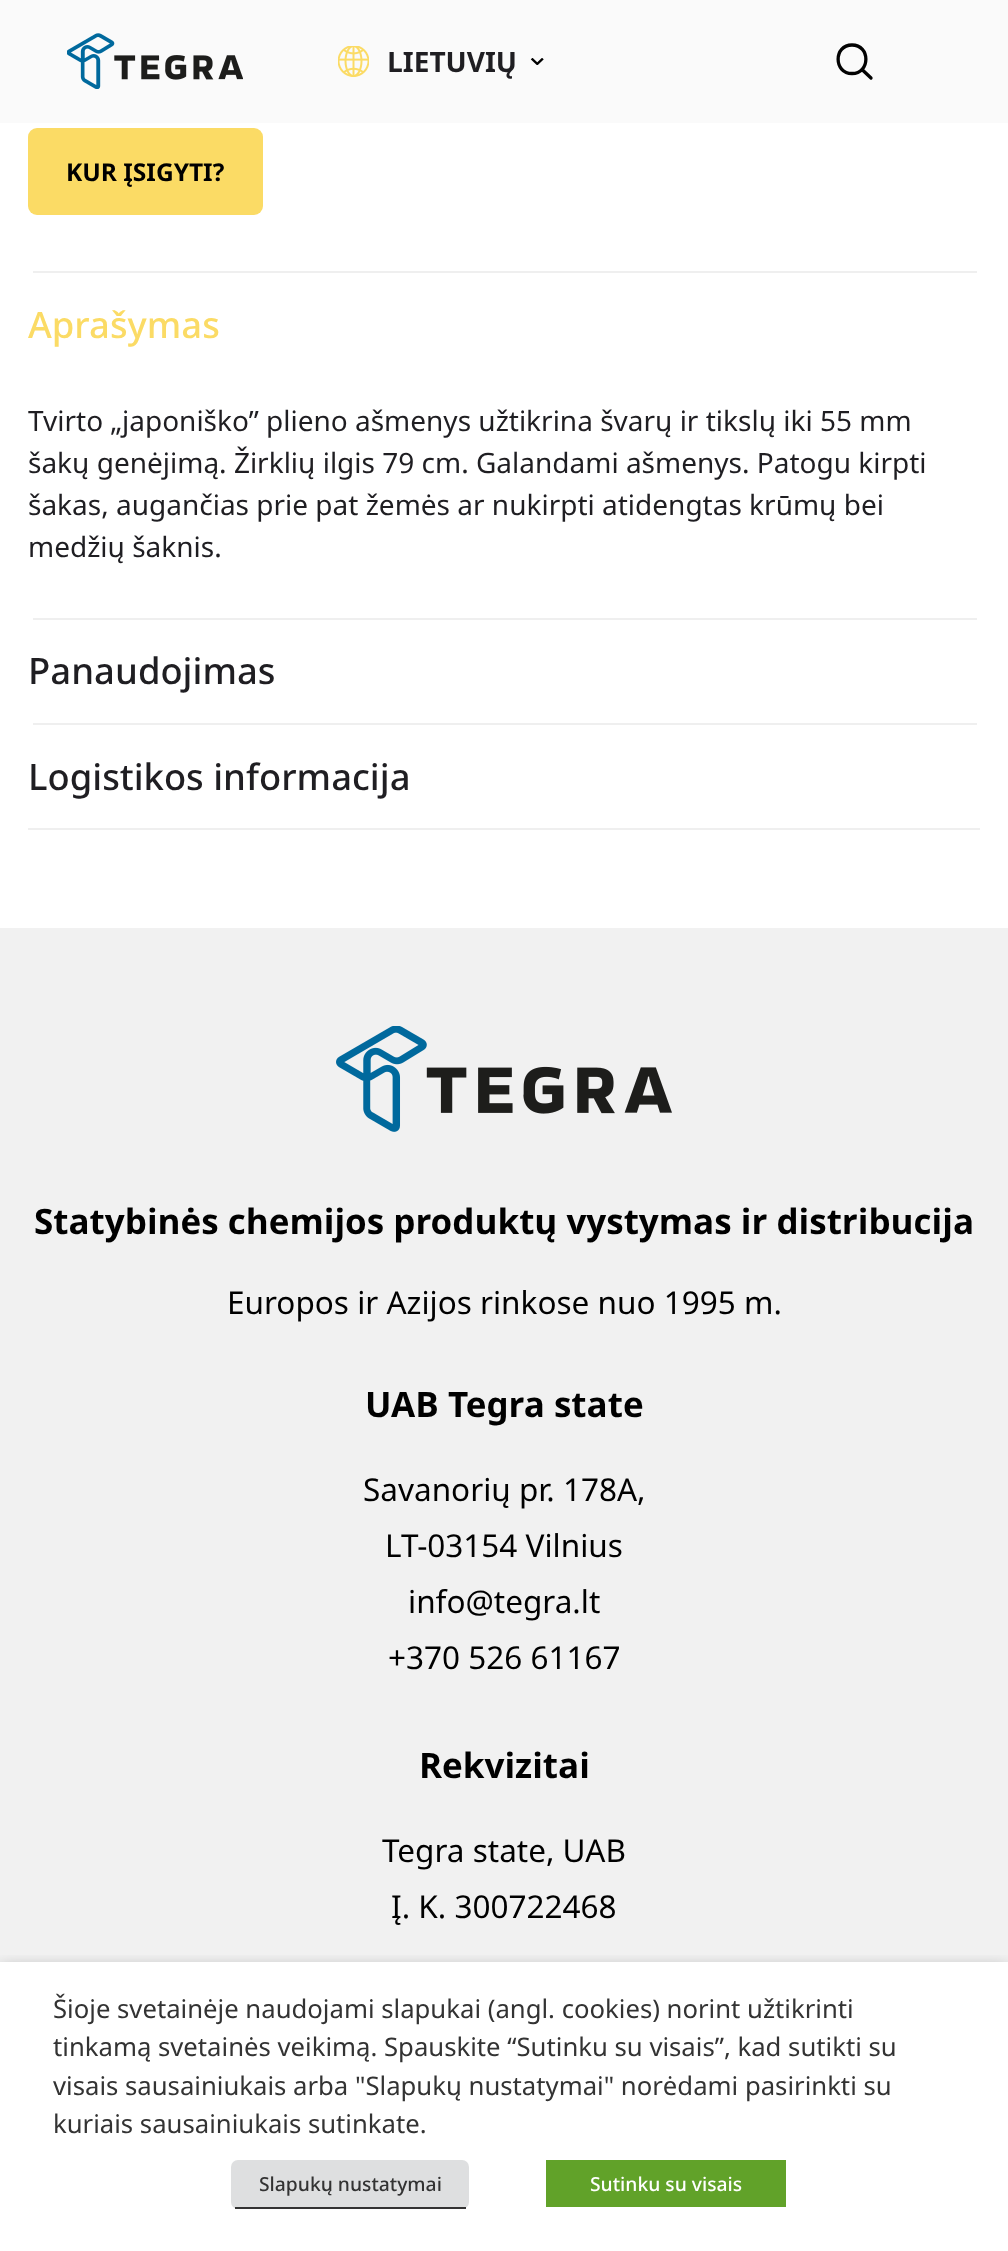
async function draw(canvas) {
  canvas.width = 1008
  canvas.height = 2251
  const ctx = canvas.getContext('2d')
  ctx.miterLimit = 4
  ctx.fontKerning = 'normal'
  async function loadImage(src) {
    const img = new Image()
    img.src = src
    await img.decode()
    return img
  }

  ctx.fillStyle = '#fff'
  ctx.fillRect(0, 0, 1008, 2251)
  ctx.fillStyle = '#fafafa'
  ctx.fillRect(0, 0, 1008, 123)
  ctx.drawImage(await loadImage('image0.png'), 67, 33, 176, 56)
  ctx.drawImage(await loadImage('image1.png'), 338, 46, 31, 31)
  ctx.drawImage(await loadImage('image2.png'), 530, 58, 14, 7)
  ctx.font = 'bold 28px Noto Sans'
  ctx.fillStyle = '#1f1e22'
  ctx.fillText('LIETUVIŲ', 387, 72)
  ctx.beginPath()
  ctx.moveTo(871, 78)
  ctx.lineTo(862, 69.5)
  ctx.moveTo(852, 45)
  ctx.bezierCurveTo(870.5, 45, 870.5, 73.5, 852, 73.5)
  ctx.bezierCurveTo(833.5, 73.5, 833.5, 45, 852, 45)
  ctx.closePath()
  ctx.strokeStyle = '#020202'
  ctx.lineWidth = 3.3
  ctx.lineCap = 'round'
  ctx.lineJoin = 'round'
  ctx.stroke()
  ctx.fillStyle = '#fbdb65'
  ctx.beginPath()
  ctx.roundRect(28, 128, 235, 87, 9)
  ctx.fill()
  ctx.font = 'bold 24.5px Noto Sans'
  ctx.fillStyle = '#000'
  ctx.fillText('KUR ĮSIGYTI?', 66, 181)
  ctx.fillStyle = '#efefef'
  ctx.fillRect(28, 828, 952, 2)
  ctx.fillRect(33, 271, 944, 2)
  ctx.font = '500 36.4px Noto Sans'
  ctx.fillStyle = '#fbdb65'
  ctx.fillText('Aprašymas', 28, 338)
  ctx.font = '28px Noto Sans'
  ctx.fillStyle = '#1f1e22'
  ctx.fillText('Tvirto „japoniško” plieno ašmenys užtikrina švarų ir tikslų iki 55 mm', 28, 431)
  ctx.fillText('šakų genėjimą. Žirklių ilgis 79 cm. Galandami ašmenys. Patogu kirpti', 28, 473)
  ctx.fillText('šakas, augančias prie pat žemės ar nukirpti atidengtas krūmų bei', 28, 515)
  ctx.fillText('medžių šaknis.', 28, 557)
  ctx.fillStyle = '#efefef'
  ctx.fillRect(33, 618, 944, 2)
  ctx.font = '500 36.4px Noto Sans'
  ctx.fillStyle = '#1f1e22'
  ctx.fillText('Panaudojimas', 28, 684)
  ctx.fillStyle = '#efefef'
  ctx.fillRect(33, 723, 944, 2)
  ctx.fillStyle = '#1f1e22'
  ctx.fillText('Logistikos informacija', 28, 790)
  ctx.fillStyle = '#f1f1f1'
  ctx.fillRect(0, 928, 1008, 1323)
  ctx.drawImage(await loadImage('image3.png'), 336, 1026, 336, 106)
  ctx.font = 'bold 35px Noto Sans'
  ctx.fillStyle = '#000'
  ctx.fillText('Statybinės chemijos produktų vystymas ir distribucija', 34, 1234)
  ctx.font = '31.5px Noto Sans'
  ctx.fillText('Europos ir Azijos rinkose nuo 1995 m.', 227, 1314)
  ctx.font = 'bold 35px Noto Sans'
  ctx.fillText('UAB Tegra state', 365, 1417)
  ctx.font = '31.5px Noto Sans'
  ctx.fillText('Savanorių pr. 178A,', 363, 1501)
  ctx.fillText('LT-03154 Vilnius', 385, 1557)
  ctx.fillText('info@tegra.lt', 408, 1613)
  ctx.fillText('+370 526 61167', 388, 1669)
  ctx.font = 'bold 35px Noto Sans'
  ctx.fillText('Rekvizitai', 419, 1778)
  ctx.font = '31.5px Noto Sans'
  ctx.fillText('Tegra state, UAB', 382, 1862)
  ctx.fillText('Į. K. 300722468', 391, 1918)
  ctx.save()
  ctx.beginPath()
  ctx.rect(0, 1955, 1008, 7)
  ctx.clip()
  ctx.fillStyle = '#00000080'
  ctx.filter = 'blur(9px)'
  ctx.beginPath()
  ctx.rect(0, 1971, 1008, 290)
  ctx.fill()
  ctx.filter = 'none'
  ctx.restore()
  ctx.fillStyle = '#fffffff7'
  ctx.fillRect(0, 1962, 1008, 289)
  ctx.font = '25.7px Noto Sans'
  ctx.fillStyle = '#333'
  ctx.fillText('Šioje svetainėje naudojami slapukai (angl. cookies) norint užtikrinti', 53, 2018)
  ctx.fillText('tinkamą svetainės veikimą. Spauskite “Sutinku su visais”, kad sutikti su', 53, 2056)
  ctx.fillText('visais sausainiukais arba "Slapukų nustatymai" norėdami pasirinkti su', 53, 2095)
  ctx.fillText('kuriais sausainiukais sutinkate.', 53, 2133)
  ctx.fillStyle = '#dedfe0'
  ctx.beginPath()
  ctx.roundRect(231, 2160, 238, 49, 7)
  ctx.fill()
  ctx.fillStyle = '#333'
  ctx.fillRect(235, 2207, 231, 2)
  ctx.font = '500 19.25px Noto Sans'
  ctx.fillText('Slapukų nustatymai', 259, 2191)
  ctx.fillStyle = '#61a229'
  ctx.fillRect(546, 2160, 240, 47)
  ctx.fillStyle = '#fff'
  ctx.fillText('Sutinku su visais', 590, 2191)
}

draw(document.querySelector('canvas'))
